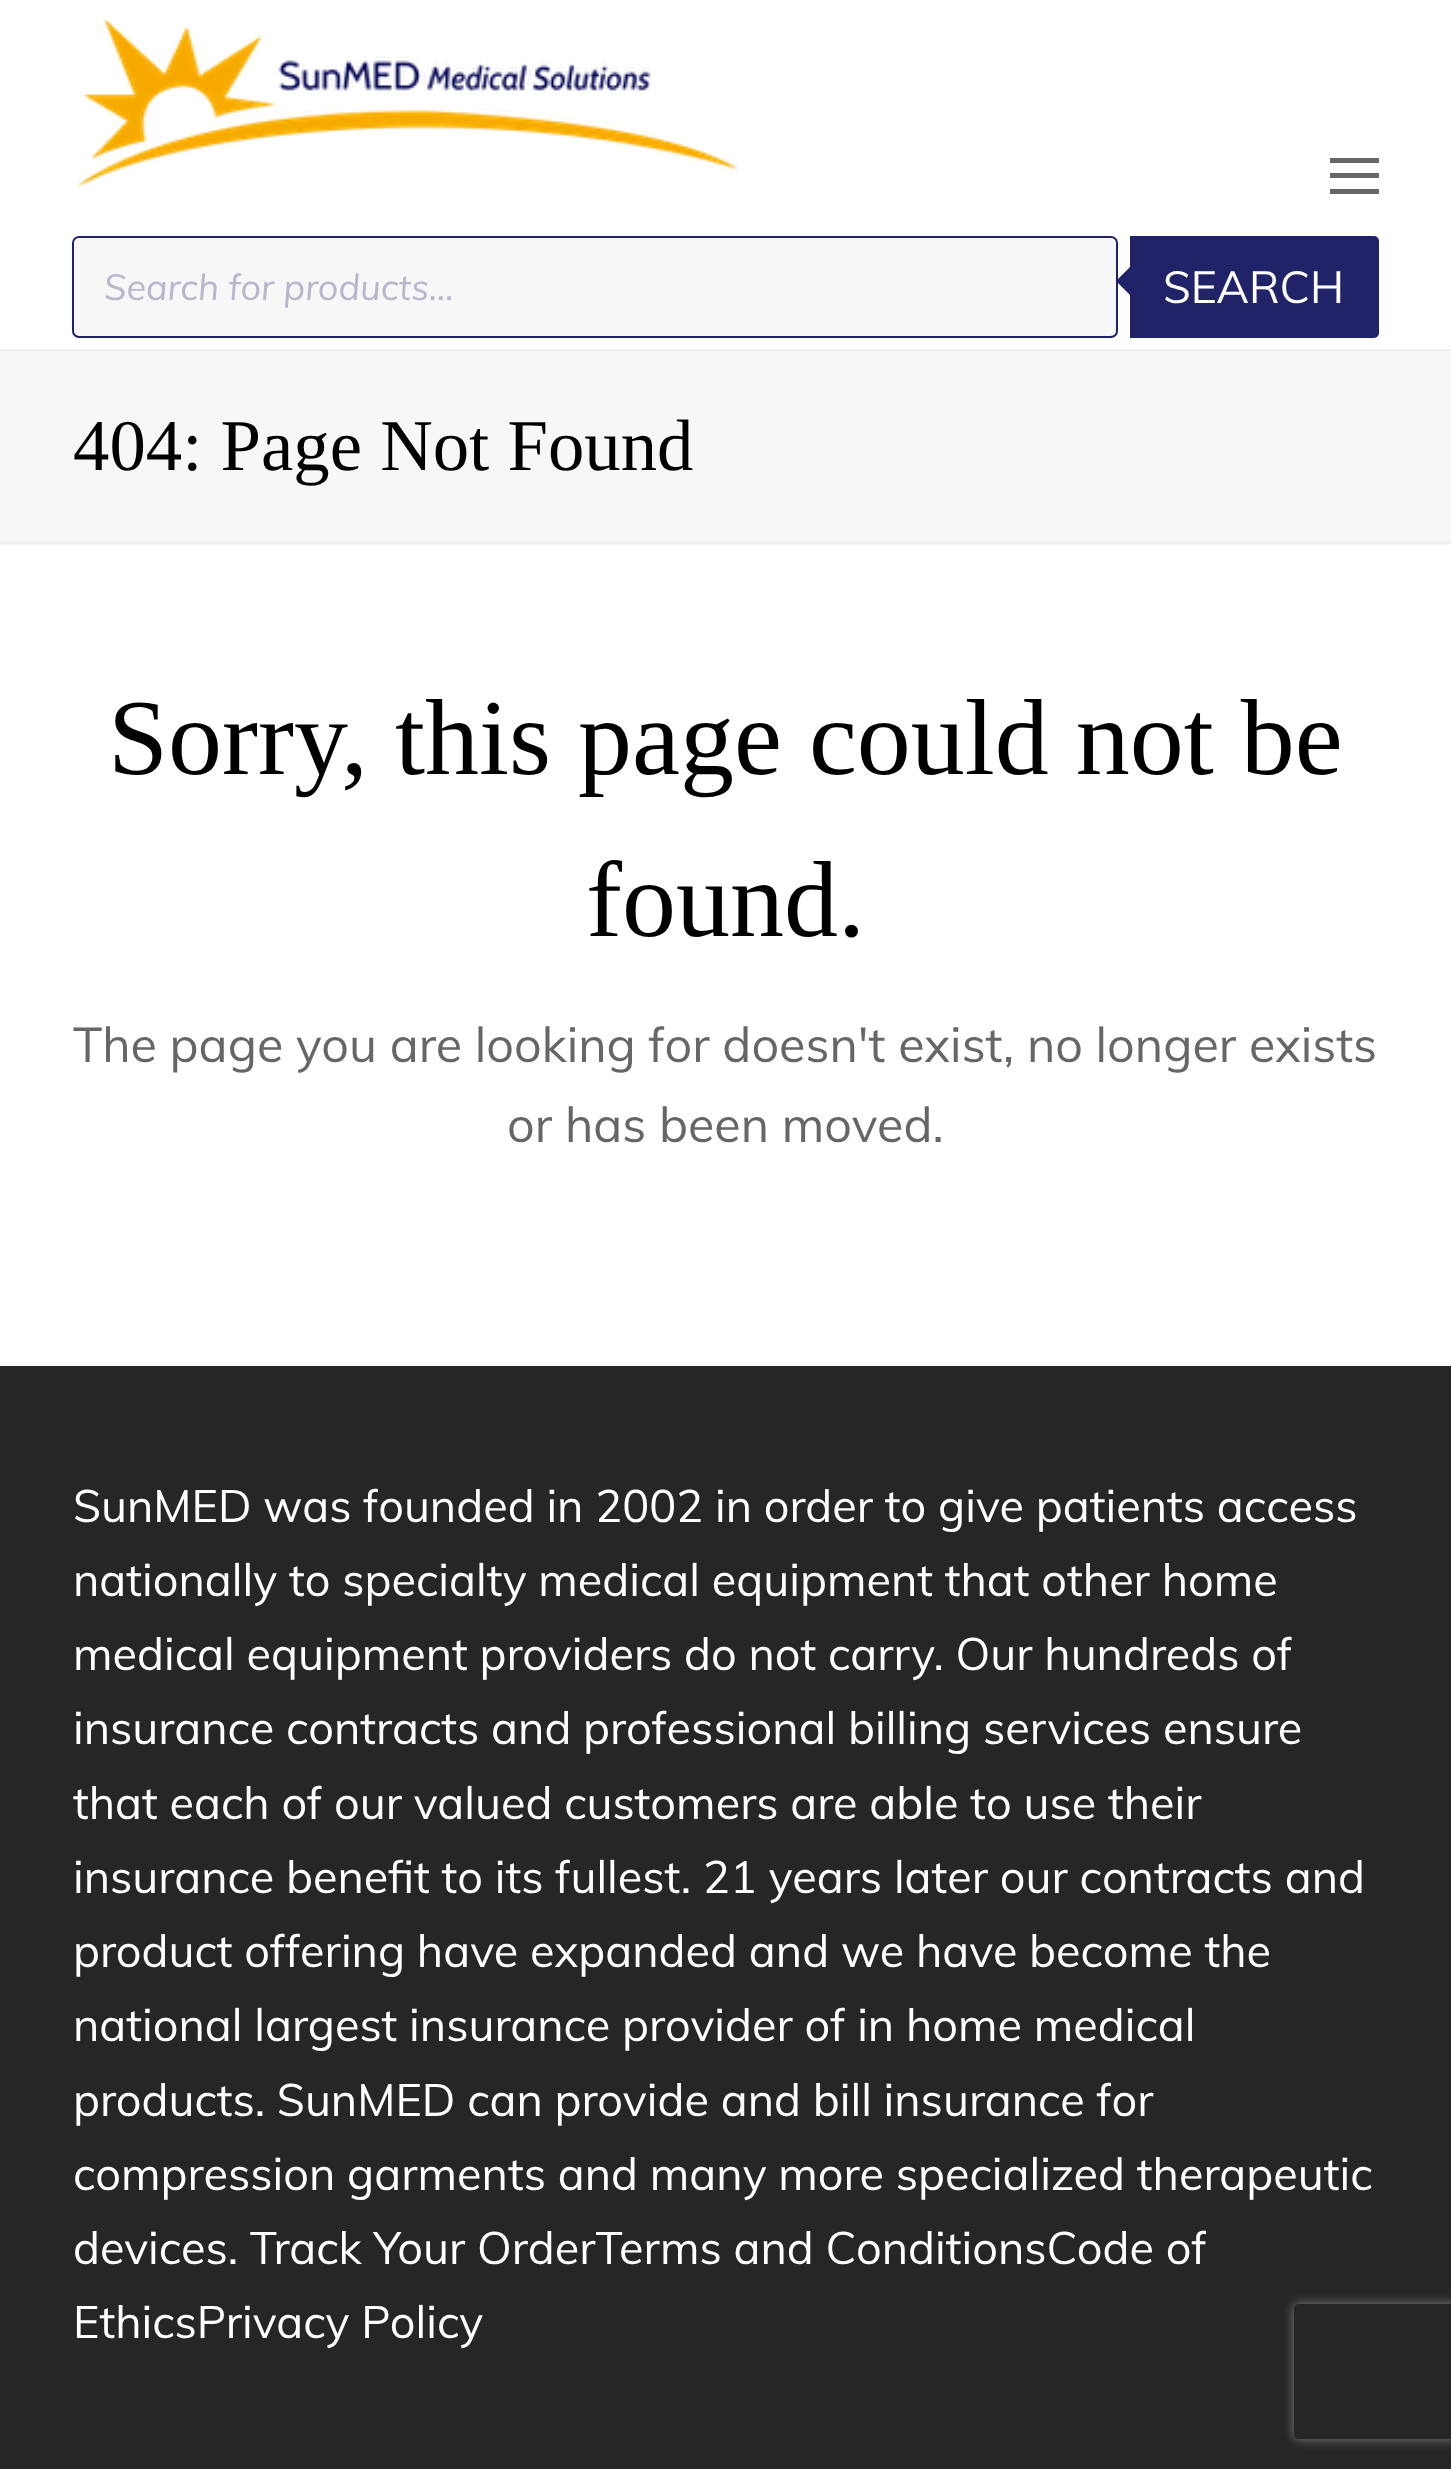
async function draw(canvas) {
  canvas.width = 1451
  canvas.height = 2469
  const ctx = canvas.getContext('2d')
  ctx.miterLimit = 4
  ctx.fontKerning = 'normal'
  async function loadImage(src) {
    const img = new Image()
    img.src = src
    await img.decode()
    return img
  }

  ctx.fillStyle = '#fff'
  ctx.fillRect(0, 0, 1451, 2469)
  ctx.drawImage(await loadImage('image0.png'), 77, 17, 662, 171)
  ctx.fillStyle = '#666'
  ctx.fillRect(1330, 173, 49, 5)
  ctx.fillRect(1330, 158, 49, 5)
  ctx.fillRect(1330, 189, 49, 5)
  ctx.fillStyle = '#f7f7f7'
  ctx.beginPath()
  ctx.roundRect(73, 237, 1044, 100, 6)
  ctx.fill()
  ctx.strokeStyle = '#212369'
  ctx.lineWidth = 2
  ctx.stroke()
  ctx.font = 'italic 36px Muli'
  ctx.fillStyle = '#b7b7cc'
  ctx.fillText('Search for products...', 104, 300)
  ctx.fillStyle = '#212369'
  ctx.beginPath()
  ctx.roundRect(1130, 236, 249, 102, [0, 5, 5, 0])
  ctx.fill()
  ctx.beginPath()
  ctx.moveTo(1134, 263)
  ctx.lineTo(1134, 299)
  ctx.lineTo(1116, 281)
  ctx.closePath()
  ctx.fill()
  ctx.font = '44.5px Muli'
  ctx.fillStyle = '#fff'
  ctx.fillText('SEARCH', 1163, 303)
  ctx.fillStyle = '#f7f7f7'
  ctx.fillRect(0, 351, 1451, 194)
  ctx.fillStyle = '#eee'
  ctx.fillRect(0, 349, 1451, 2)
  ctx.fillRect(0, 542, 1451, 2)
  ctx.font = '72.75px Liberation Serif'
  ctx.fillStyle = '#000'
  ctx.fillText('404: Page Not Found', 73, 470)
  ctx.font = '108px Liberation Serif'
  ctx.fillText('Sorry, this page could not be', 108, 774)
  ctx.fillText('found.', 586, 936)
  ctx.font = '48.45px Muli'
  ctx.fillStyle = '#666'
  ctx.fillText('The page you are looking for doesn\'t exist, no longer exists', 73, 1062)
  ctx.fillText('or has been moved.', 507, 1142)
  ctx.fillStyle = '#262626'
  ctx.fillRect(0, 1366, 1451, 1103)
  ctx.font = '45px Muli'
  ctx.fillStyle = '#fff'
  ctx.fillText('SunMED was founded in 2002 in order to give patients access', 73, 1522)
  ctx.fillText('nationally to specialty medical equipment that other home', 73, 1596)
  ctx.fillText('medical equipment providers do not carry. Our hundreds of', 73, 1670)
  ctx.fillText('insurance contracts and professional billing services ensure', 73, 1744)
  ctx.fillText('that each of our valued customers are able to use their', 73, 1819)
  ctx.fillText('insurance benefit to its fullest. 21 years later our contracts and', 73, 1893)
  ctx.fillText('product offering have expanded and we have become the', 73, 1967)
  ctx.fillText('national largest insurance provider of in home medical', 73, 2041)
  ctx.fillText('products. SunMED can provide and bill insurance for', 73, 2116)
  ctx.fillText('compression garments and many more specialized therapeutic', 73, 2190)
  ctx.fillText('devices. Track Your OrderTerms and ConditionsCode of', 73, 2264)
  ctx.fillText('EthicsPrivacy Policy', 73, 2338)
  ctx.save()
  ctx.beginPath()
  ctx.moveTo(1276, 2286)
  ctx.lineTo(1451, 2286)
  ctx.lineTo(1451, 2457)
  ctx.lineTo(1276, 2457)
  ctx.closePath()
  ctx.moveTo(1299, 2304)
  ctx.lineTo(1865, 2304)
  ctx.bezierCurveTo(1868, 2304, 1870, 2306, 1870, 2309)
  ctx.lineTo(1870, 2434)
  ctx.bezierCurveTo(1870, 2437, 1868, 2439, 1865, 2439)
  ctx.lineTo(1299, 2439)
  ctx.bezierCurveTo(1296, 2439, 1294, 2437, 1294, 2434)
  ctx.lineTo(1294, 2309)
  ctx.bezierCurveTo(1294, 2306, 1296, 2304, 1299, 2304)
  ctx.closePath()
  ctx.clip('evenodd')
  ctx.fillStyle = '#808080'
  ctx.filter = 'blur(5.5px)'
  ctx.beginPath()
  ctx.roundRect(1294, 2304, 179, 135, 5)
  ctx.fill()
  ctx.filter = 'none'
  ctx.restore()
}

draw(document.querySelector('canvas'))
